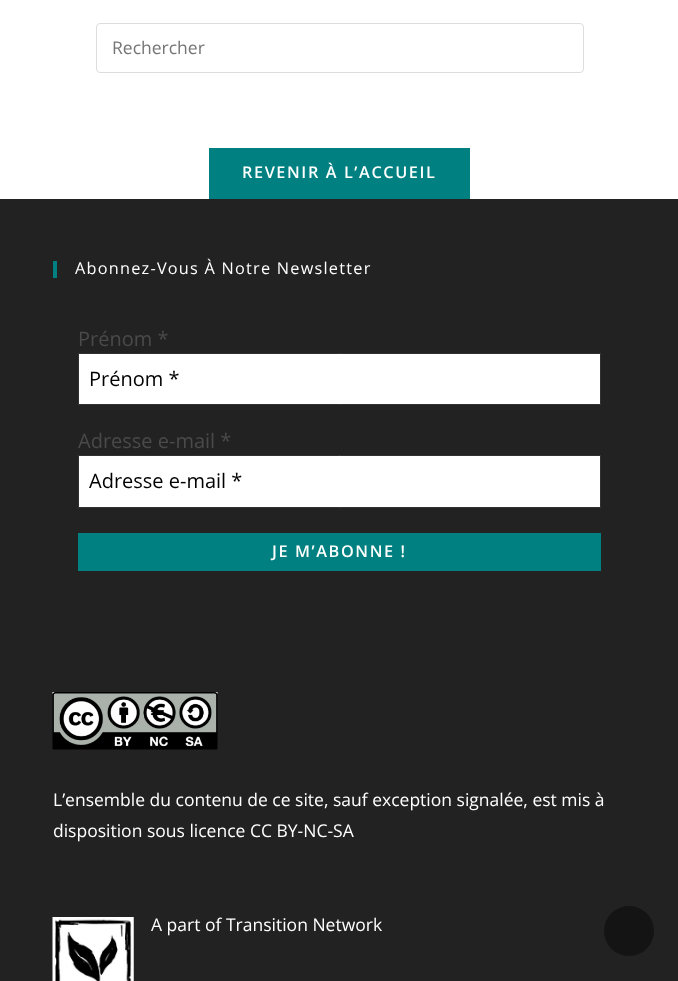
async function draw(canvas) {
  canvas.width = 678
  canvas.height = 981
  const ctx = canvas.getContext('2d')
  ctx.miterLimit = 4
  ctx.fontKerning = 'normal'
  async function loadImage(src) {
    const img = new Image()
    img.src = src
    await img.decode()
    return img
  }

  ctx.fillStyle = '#fff'
  ctx.fillRect(0, 0, 678, 981)
  ctx.beginPath()
  ctx.roundRect(96.5, 23.5, 487, 49, 3.5)
  ctx.strokeStyle = '#ddd'
  ctx.stroke()
  ctx.font = '17.5px Open Sans'
  ctx.fillStyle = '#757575'
  ctx.fillText('Rechercher', 112, 54)
  ctx.fillStyle = '#008080'
  ctx.fillRect(209, 148, 261, 51)
  ctx.letterSpacing = '1.6px'
  ctx.font = '600 16.25px Open Sans'
  ctx.fillStyle = '#fff'
  ctx.fillText('REVENIR À L’ACCUEIL', 242, 178)
  ctx.fillStyle = '#222'
  ctx.fillRect(0, 199, 678, 782)
  ctx.fillStyle = '#008080'
  ctx.fillRect(53, 261, 4, 17)
  ctx.letterSpacing = '1.25px'
  ctx.font = '16.25px Open Sans'
  ctx.fillStyle = '#fff'
  ctx.fillText('Abonnez-Vous À Notre Newsletter', 75, 274)
  ctx.letterSpacing = '0px'
  ctx.font = '20px Open Sans'
  ctx.fillStyle = '#4a4a4a'
  ctx.fillText('Prénom *', 78, 346)
  ctx.fillStyle = '#fff'
  ctx.beginPath()
  ctx.rect(78.5, 353.5, 522, 51)
  ctx.fill()
  ctx.strokeStyle = '#313131'
  ctx.stroke()
  ctx.fillStyle = '#000'
  ctx.fillText('Prénom *', 89, 386)
  ctx.fillStyle = '#4a4a4a'
  ctx.fillText('Adresse e-mail *', 78, 448)
  ctx.fillStyle = '#fff'
  ctx.beginPath()
  ctx.rect(78.5, 455.5, 522, 52)
  ctx.fill()
  ctx.stroke()
  ctx.fillStyle = '#000'
  ctx.fillText('Adresse e-mail *', 89, 488)
  ctx.fillStyle = '#008080'
  ctx.fillRect(78, 533, 523, 38)
  ctx.letterSpacing = '1.6px'
  ctx.font = '600 16.25px Open Sans'
  ctx.fillStyle = '#fff'
  ctx.fillText('JE M’ABONNE !', 272, 557)
  ctx.drawImage(await loadImage('image0.png'), 52, 692, 166, 58)
  ctx.letterSpacing = '0px'
  ctx.font = '17.5px Open Sans'
  ctx.fillText('L’ensemble du contenu de ce site, sauf exception signalée, est mis à', 53, 806)
  ctx.fillText('disposition sous licence CC BY-NC-SA', 53, 837)
  ctx.drawImage(await loadImage('image1.png'), 52, 917, 82, 64)
  ctx.fillText('A part of Transition Network', 151, 931)
  ctx.fillStyle = '#141414'
  ctx.beginPath()
  ctx.arc(629, 931, 25, 0, 2 * Math.PI)
  ctx.fill()
}

draw(document.querySelector('canvas'))
